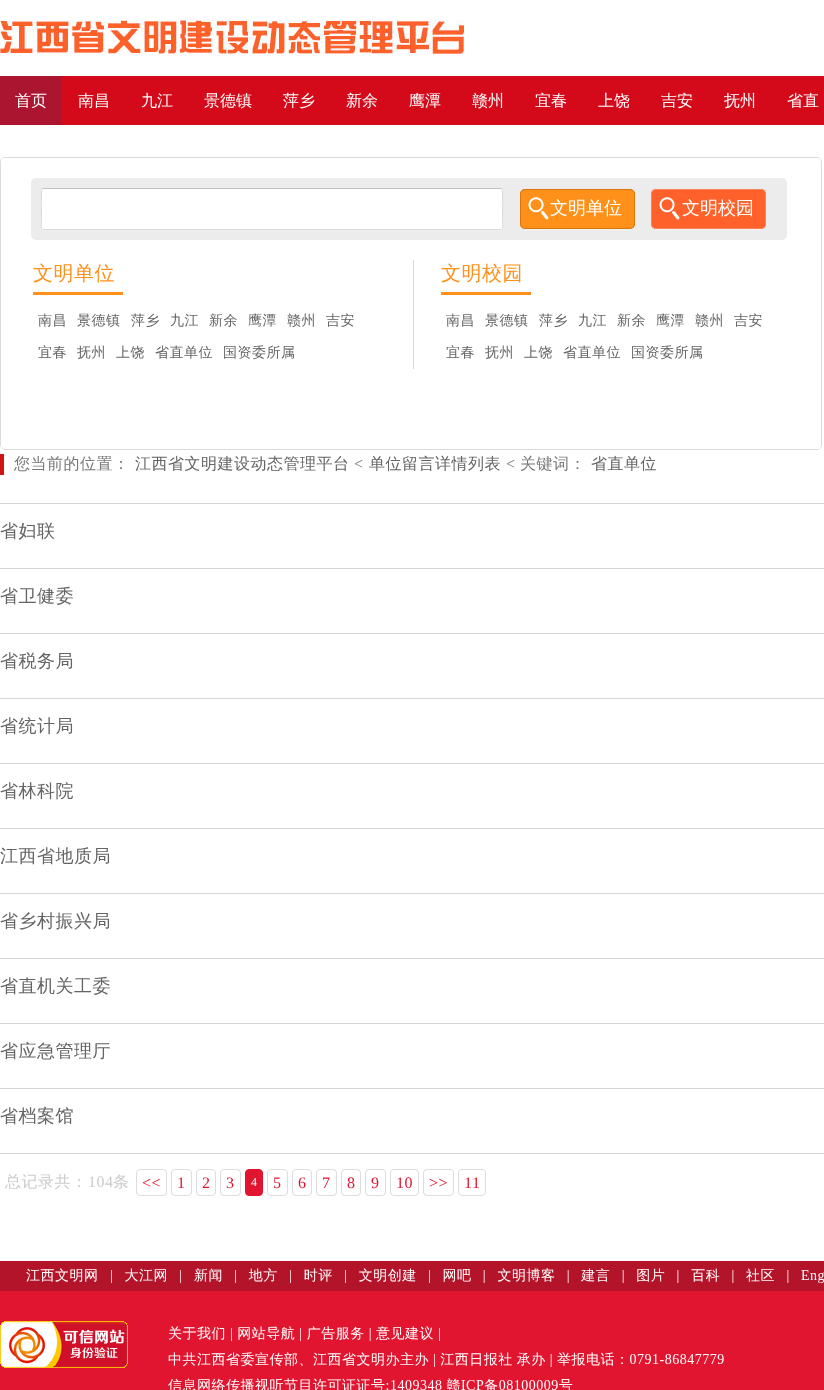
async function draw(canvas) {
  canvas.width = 824
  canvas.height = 1390
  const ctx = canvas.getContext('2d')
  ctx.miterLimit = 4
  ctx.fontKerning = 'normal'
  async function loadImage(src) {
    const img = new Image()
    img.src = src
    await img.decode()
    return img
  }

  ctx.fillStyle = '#fff'
  ctx.fillRect(0, 0, 824, 1390)
  ctx.drawImage(await loadImage('image0.png'), 0, 20, 824, 105)
  ctx.beginPath()
  ctx.roundRect(0.5, 157.5, 821, 292, 4.5)
  ctx.strokeStyle = '#dadada'
  ctx.stroke()
  ctx.beginPath()
  ctx.roundRect(1, 158, 820, 291, 4)
  ctx.fill()
  ctx.fillStyle = '#ececec'
  ctx.beginPath()
  ctx.roundRect(31, 178, 756, 62, 5)
  ctx.fill()
  ctx.fillStyle = '#f0f0f0'
  ctx.beginPath()
  ctx.moveTo(41, 228)
  ctx.bezierCurveTo(41, 229, 41, 231, 43, 231)
  ctx.lineTo(501, 231)
  ctx.lineTo(503, 230)
  ctx.lineTo(503, 228)
  ctx.bezierCurveTo(503, 229, 502, 230, 501, 230)
  ctx.lineTo(43, 230)
  ctx.bezierCurveTo(42, 230, 41, 229, 41, 228)
  ctx.closePath()
  ctx.fill()
  ctx.fillStyle = '#fff'
  ctx.beginPath()
  ctx.roundRect(41, 188, 462, 42, 2)
  ctx.fill()
  ctx.beginPath()
  ctx.moveTo(42, 189)
  ctx.lineTo(43, 188.5)
  ctx.lineTo(501, 188.5)
  ctx.lineTo(502, 189)
  ctx.strokeStyle = '#c0c0c0'
  ctx.stroke()
  ctx.beginPath()
  ctx.moveTo(502, 189)
  ctx.bezierCurveTo(503, 190, 502.5, 218, 502.5, 221.5)
  ctx.bezierCurveTo(502.5, 224.5, 503.5, 229.5, 501, 229.5)
  ctx.lineTo(43, 229.5)
  ctx.bezierCurveTo(40.5, 229.5, 41.5, 224.5, 41.5, 221.5)
  ctx.bezierCurveTo(41.5, 218, 41, 190, 42, 189)
  ctx.strokeStyle = '#d9d9d9'
  ctx.stroke()
  ctx.fillStyle = '#f0f0f0'
  ctx.beginPath()
  ctx.moveTo(520, 224)
  ctx.bezierCurveTo(520, 234, 538, 230, 542, 230)
  ctx.lineTo(612, 230)
  ctx.bezierCurveTo(617, 230, 635, 234, 635, 224)
  ctx.bezierCurveTo(635, 227, 633, 229, 630, 229)
  ctx.lineTo(525, 229)
  ctx.bezierCurveTo(522, 229, 520, 227, 520, 224)
  ctx.closePath()
  ctx.fill()
  ctx.fillStyle = '#ff911b'
  ctx.beginPath()
  ctx.roundRect(520, 189, 115, 40, 5)
  ctx.fill()
  ctx.drawImage(await loadImage('image1.png'), 528, 197, 21, 23)
  ctx.beginPath()
  ctx.roundRect(520.5, 189.5, 114, 39, 4.5)
  ctx.strokeStyle = '#da7509'
  ctx.stroke()
  ctx.font = '500 18px WenQuanYi Zen Hei'
  ctx.fillStyle = '#fff'
  ctx.fillText('文明单位', 550, 214)
  ctx.fillStyle = '#f0f0f0'
  ctx.beginPath()
  ctx.moveTo(651, 224)
  ctx.bezierCurveTo(651, 234, 669, 230, 674, 230)
  ctx.lineTo(744, 230)
  ctx.bezierCurveTo(748, 230, 766, 234, 766, 224)
  ctx.bezierCurveTo(766, 227, 764, 229, 761, 229)
  ctx.lineTo(656, 229)
  ctx.bezierCurveTo(653, 229, 651, 227, 651, 224)
  ctx.closePath()
  ctx.fill()
  ctx.fillStyle = '#ff612a'
  ctx.beginPath()
  ctx.roundRect(651, 189, 115, 40, 5)
  ctx.fill()
  ctx.drawImage(await loadImage('image2.png'), 659, 197, 21, 23)
  ctx.beginPath()
  ctx.roundRect(651.5, 189.5, 114, 39, 4.5)
  ctx.strokeStyle = '#fb8359'
  ctx.stroke()
  ctx.fillStyle = '#fff'
  ctx.fillText('文明校园', 682, 214)
  ctx.fillStyle = '#d8d8d8'
  ctx.fillRect(413, 260, 1, 109)
  ctx.fillStyle = '#ff911b'
  ctx.fillRect(33, 292, 90, 3)
  ctx.letterSpacing = '0.5px'
  ctx.font = '500 20px WenQuanYi Zen Hei'
  ctx.fillText('文明单位', 33, 280)
  ctx.font = '500 14px WenQuanYi Zen Hei'
  ctx.fillStyle = '#646464'
  ctx.fillText('南昌', 38, 325)
  ctx.fillText('景德镇', 77, 325)
  ctx.fillText('萍乡', 131, 325)
  ctx.fillText('九江', 170, 325)
  ctx.fillText('新余', 209, 325)
  ctx.fillText('鹰潭', 248, 325)
  ctx.fillText('赣州', 287, 325)
  ctx.fillText('吉安', 326, 325)
  ctx.fillText('宜春', 38, 357)
  ctx.fillText('抚州', 77, 357)
  ctx.fillText('上饶', 116, 357)
  ctx.fillText('省直单位', 155, 357)
  ctx.fillText('国资委所属', 223, 357)
  ctx.fillStyle = '#ff911b'
  ctx.fillRect(441, 292, 90, 3)
  ctx.font = '500 20px WenQuanYi Zen Hei'
  ctx.fillText('文明校园', 441, 280)
  ctx.font = '500 14px WenQuanYi Zen Hei'
  ctx.fillStyle = '#646464'
  ctx.fillText('南昌', 446, 325)
  ctx.fillText('景德镇', 485, 325)
  ctx.fillText('萍乡', 539, 325)
  ctx.fillText('九江', 578, 325)
  ctx.fillText('新余', 617, 325)
  ctx.fillText('鹰潭', 656, 325)
  ctx.fillText('赣州', 695, 325)
  ctx.fillText('吉安', 734, 325)
  ctx.fillText('宜春', 446, 357)
  ctx.fillText('抚州', 485, 357)
  ctx.fillText('上饶', 524, 357)
  ctx.fillText('省直单位', 563, 357)
  ctx.fillText('国资委所属', 631, 357)
  ctx.fillStyle = '#d01414'
  ctx.fillRect(0, 454, 4, 21)
  ctx.font = '500 16px WenQuanYi Zen Hei'
  ctx.fillStyle = '#787878'
  ctx.fillText('您当前的位置：', 14, 469)
  ctx.fillStyle = '#646464'
  ctx.fillText('江西省文明建设动态管理平台', 135, 469)
  ctx.font = '16px Liberation Serif'
  ctx.fillStyle = '#787878'
  ctx.fillText('<', 354, 469)
  ctx.font = '500 16px WenQuanYi Zen Hei'
  ctx.fillStyle = '#646464'
  ctx.fillText('单位留言详情列表', 369, 469)
  ctx.font = '16px Liberation Serif'
  ctx.fillStyle = '#787878'
  ctx.fillText('<', 506, 469)
  ctx.font = '500 16px WenQuanYi Zen Hei'
  ctx.fillText('关键词：', 520, 469)
  ctx.fillStyle = '#646464'
  ctx.fillText('省直单位', 591, 469)
  ctx.fillStyle = '#d5d5d5'
  ctx.fillRect(0, 503, 824, 1)
  ctx.fillRect(0, 568, 824, 1)
  ctx.font = '500 18px WenQuanYi Zen Hei'
  ctx.fillStyle = '#646464'
  ctx.fillText('省妇联', 0, 537)
  ctx.fillStyle = '#d5d5d5'
  ctx.fillRect(0, 633, 824, 1)
  ctx.fillStyle = '#646464'
  ctx.fillText('省卫健委', 0, 602)
  ctx.fillStyle = '#d5d5d5'
  ctx.fillRect(0, 698, 824, 1)
  ctx.fillStyle = '#646464'
  ctx.fillText('省税务局', 0, 667)
  ctx.fillStyle = '#d5d5d5'
  ctx.fillRect(0, 763, 824, 1)
  ctx.fillStyle = '#646464'
  ctx.fillText('省统计局', 0, 732)
  ctx.fillStyle = '#d5d5d5'
  ctx.fillRect(0, 828, 824, 1)
  ctx.fillStyle = '#646464'
  ctx.fillText('省林科院', 0, 797)
  ctx.fillStyle = '#d5d5d5'
  ctx.fillRect(0, 893, 824, 1)
  ctx.fillStyle = '#646464'
  ctx.fillText('江西省地质局', 0, 862)
  ctx.fillStyle = '#d5d5d5'
  ctx.fillRect(0, 958, 824, 1)
  ctx.fillStyle = '#646464'
  ctx.fillText('省乡村振兴局', 0, 927)
  ctx.fillStyle = '#d5d5d5'
  ctx.fillRect(0, 1023, 824, 1)
  ctx.fillStyle = '#646464'
  ctx.fillText('省直机关工委', 0, 992)
  ctx.fillStyle = '#d5d5d5'
  ctx.fillRect(0, 1088, 824, 1)
  ctx.fillStyle = '#646464'
  ctx.fillText('省应急管理厅', 0, 1057)
  ctx.fillStyle = '#d5d5d5'
  ctx.fillRect(0, 1153, 824, 1)
  ctx.fillStyle = '#646464'
  ctx.fillText('省档案馆', 0, 1122)
  ctx.font = '500 16px WenQuanYi Zen Hei'
  ctx.fillStyle = '#ccc'
  ctx.fillText('总记录共：', 5, 1187)
  ctx.font = '16px Liberation Serif'
  ctx.fillText('104', 88, 1187)
  ctx.font = '500 16px WenQuanYi Zen Hei'
  ctx.fillText('条', 113, 1187)
  ctx.beginPath()
  ctx.roundRect(136.5, 1169.5, 30, 26, 3.5)
  ctx.strokeStyle = '#ddd'
  ctx.stroke()
  ctx.font = '16px Liberation Serif'
  ctx.fillStyle = '#e1152f'
  ctx.fillText('<<', 142, 1188)
  ctx.beginPath()
  ctx.roundRect(171.5, 1169.5, 20, 26, 3.5)
  ctx.stroke()
  ctx.fillText('1', 177, 1188)
  ctx.beginPath()
  ctx.roundRect(196.5, 1169.5, 19, 26, 3.5)
  ctx.stroke()
  ctx.fillText('2', 202, 1188)
  ctx.beginPath()
  ctx.roundRect(220.5, 1169.5, 20, 26, 3.5)
  ctx.stroke()
  ctx.fillText('3', 226, 1188)
  ctx.beginPath()
  ctx.roundRect(245.5, 1169.5, 17, 26, 3.5)
  ctx.fill()
  ctx.strokeStyle = '#e1152f'
  ctx.stroke()
  ctx.font = '12px Liberation Serif'
  ctx.fillStyle = '#fff'
  ctx.fillText('4', 251, 1186)
  ctx.beginPath()
  ctx.roundRect(267.5, 1169.5, 20, 26, 3.5)
  ctx.strokeStyle = '#ddd'
  ctx.stroke()
  ctx.font = '16px Liberation Serif'
  ctx.fillStyle = '#e1152f'
  ctx.fillText('5', 273, 1188)
  ctx.beginPath()
  ctx.roundRect(292.5, 1169.5, 19, 26, 3.5)
  ctx.stroke()
  ctx.fillText('6', 298, 1188)
  ctx.beginPath()
  ctx.roundRect(316.5, 1169.5, 20, 26, 3.5)
  ctx.stroke()
  ctx.fillText('7', 322, 1188)
  ctx.beginPath()
  ctx.roundRect(341.5, 1169.5, 19, 26, 3.5)
  ctx.stroke()
  ctx.fillText('8', 347, 1188)
  ctx.beginPath()
  ctx.roundRect(365.5, 1169.5, 20, 26, 3.5)
  ctx.stroke()
  ctx.fillText('9', 371, 1188)
  ctx.beginPath()
  ctx.roundRect(390.5, 1169.5, 28, 26, 3.5)
  ctx.stroke()
  ctx.fillText('10', 396, 1188)
  ctx.beginPath()
  ctx.roundRect(423.5, 1169.5, 30, 26, 3.5)
  ctx.stroke()
  ctx.fillText('>>', 429, 1188)
  ctx.beginPath()
  ctx.roundRect(458.5, 1169.5, 27, 26, 3.5)
  ctx.stroke()
  ctx.fillText('11', 464, 1188)
  ctx.drawImage(await loadImage('image3.png'), 0, 1261, 824, 129)
}

draw(document.querySelector('canvas'))
